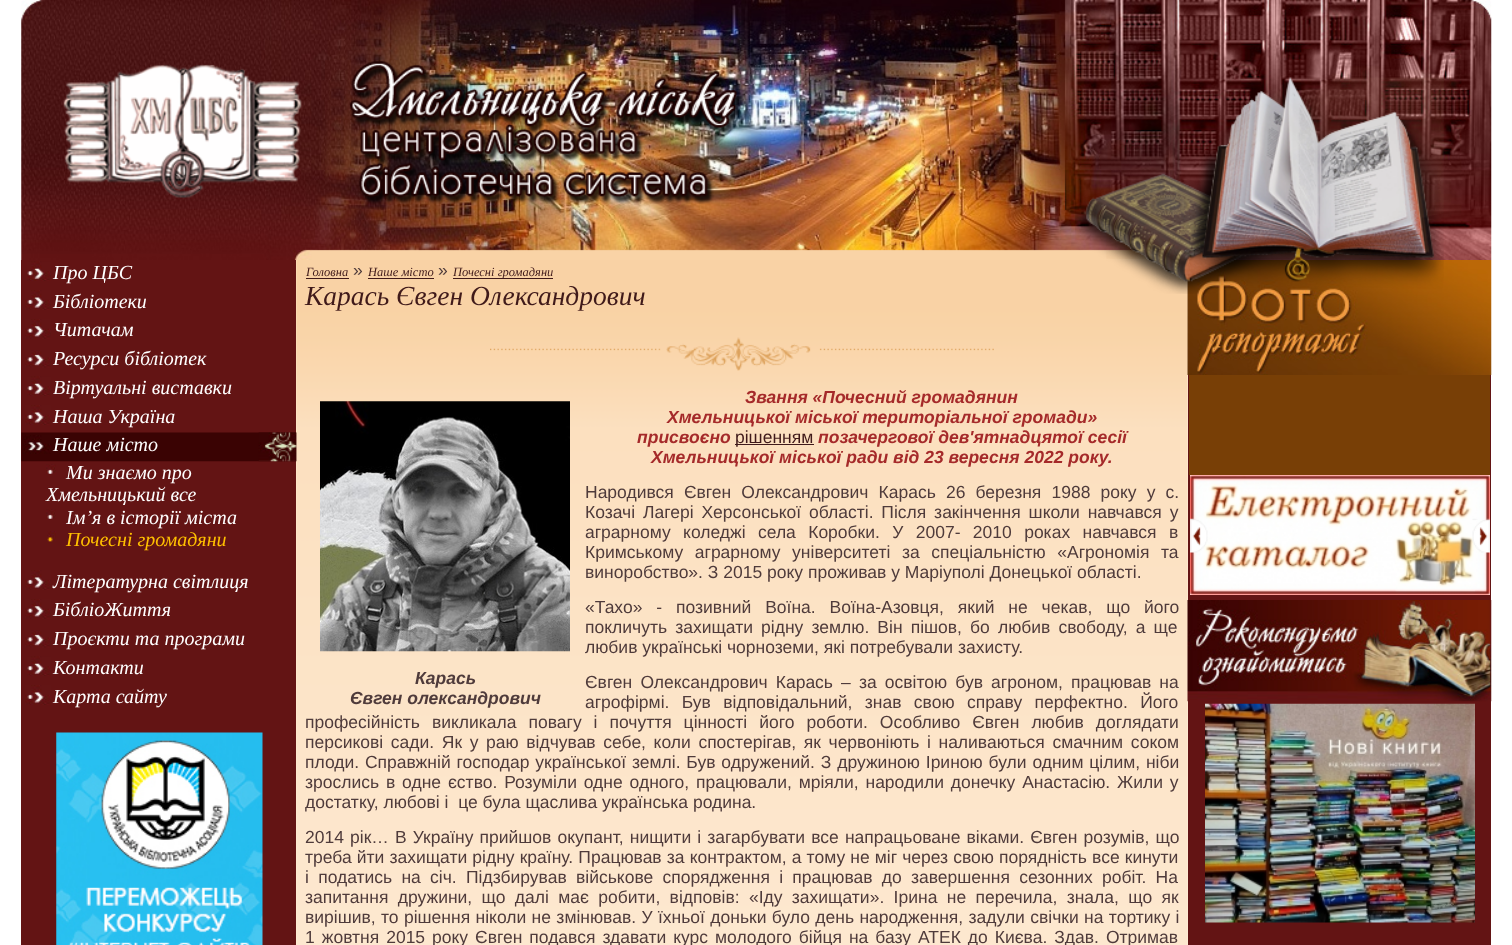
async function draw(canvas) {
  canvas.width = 1512
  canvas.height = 945
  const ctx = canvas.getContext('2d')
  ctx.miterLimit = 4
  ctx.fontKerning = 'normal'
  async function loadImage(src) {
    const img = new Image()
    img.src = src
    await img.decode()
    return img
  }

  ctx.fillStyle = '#fff'
  ctx.fillRect(0, 0, 1512, 945)
  ctx.drawImage(await loadImage('image0.png'), 21, 0, 1471, 260)
  ctx.drawImage(await loadImage('image1.png'), 63, 64, 239, 134)
  ctx.drawImage(await loadImage('image2.png'), 349, 61, 394, 143)
  ctx.fillStyle = '#631414'
  ctx.fillRect(21, 260, 1470, 685)
  ctx.fillStyle = '#feecd8'
  ctx.fillRect(296, 260, 892, 685)
  ctx.drawImage(await loadImage('image14.png'), 296, 260, 892, 685)
  ctx.drawImage(await loadImage('image17.png'), 1187, 260, 305, 115)
  ctx.drawImage(await loadImage('image3.png'), 1075, 77, 369, 217)
  ctx.drawImage(await loadImage('image4.png'), 27, 261, 24, 20)
  ctx.font = 'italic 20px Liberation Serif'
  ctx.fillStyle = '#fff'
  ctx.fillText('Про ЦБС', 53, 279)
  ctx.drawImage(await loadImage('image5.png'), 25, 290, 26, 20)
  ctx.fillText('Бібліотеки', 53, 308)
  ctx.drawImage(await loadImage('image6.png'), 25, 319, 26, 20)
  ctx.fillText('Читачам', 53, 336)
  ctx.drawImage(await loadImage('image7.png'), 25, 350, 26, 18)
  ctx.fillText('Ресурси бібліотек', 53, 365)
  ctx.drawImage(await loadImage('image4.png'), 27, 376, 24, 20)
  ctx.fillText('Віртуальні виставки', 53, 394)
  ctx.drawImage(await loadImage('image8.png'), 25, 405, 26, 20)
  ctx.fillText('Наша Україна', 53, 423)
  ctx.drawImage(await loadImage('image9.png'), 21, 432, 276, 30)
  ctx.drawImage(await loadImage('image10.png'), 23, 435, 28, 19)
  ctx.fillText('Наше місто', 53, 451)
  ctx.drawImage(await loadImage('image11.png'), 46, 464, 10, 10)
  ctx.fillText('Ми знаємо про', 66, 479)
  ctx.fillText('Хмельницький все', 46, 501)
  ctx.drawImage(await loadImage('image11.png'), 46, 509, 10, 10)
  ctx.fillText('Ім’я в історії міста', 66, 524)
  ctx.drawImage(await loadImage('image12.png'), 47, 531, 9, 11)
  ctx.fillStyle = '#ffc000'
  ctx.fillText('Почесні громадяни', 66, 546)
  ctx.drawImage(await loadImage('image8.png'), 25, 570, 26, 20)
  ctx.fillStyle = '#fff'
  ctx.fillText('Літературна світлиця', 53, 588)
  ctx.drawImage(await loadImage('image6.png'), 25, 599, 26, 20)
  ctx.fillText('БібліоЖиття', 53, 616)
  ctx.drawImage(await loadImage('image7.png'), 25, 630, 26, 18)
  ctx.fillText('Проєкти та програми', 53, 645)
  ctx.drawImage(await loadImage('image4.png'), 27, 656, 24, 20)
  ctx.fillText('Контакти', 53, 674)
  ctx.drawImage(await loadImage('image8.png'), 25, 685, 26, 20)
  ctx.fillText('Карта сайту', 53, 703)
  ctx.drawImage(await loadImage('image13.png'), 56, 732, 207, 213)
  ctx.font = 'italic 12.5px Liberation Serif'
  ctx.fillStyle = '#401a1a'
  ctx.fillText('Головна', 306, 276)
  ctx.fillRect(306, 278, 43, 1)
  ctx.font = '17.5px Liberation Sans'
  ctx.fillStyle = '#4f3b3b'
  ctx.fillText('»', 353, 276)
  ctx.font = 'italic 12.5px Liberation Serif'
  ctx.fillStyle = '#401a1a'
  ctx.fillText('Наше місто', 368, 276)
  ctx.fillRect(368, 278, 66, 1)
  ctx.font = '17.5px Liberation Sans'
  ctx.fillStyle = '#4f3b3b'
  ctx.fillText('»', 438, 276)
  ctx.fillStyle = '#401a1a'
  ctx.fillRect(453, 278, 100, 1)
  ctx.font = 'italic 12.5px Liberation Serif'
  ctx.fillText('Почесні громадяни', 453, 276)
  ctx.font = 'italic 27.5px Liberation Serif'
  ctx.fillText('Карась Євген Олександрович', 305, 305)
  ctx.drawImage(await loadImage('image15.png'), 490, 337, 504, 34)
  ctx.font = 'italic bold 17.5px Liberation Sans'
  ctx.fillStyle = '#a52a2a'
  ctx.fillText('Звання «Почесний громадянин', 745, 403)
  ctx.fillText('Хмельницької міської територіальної громади»', 667, 423)
  ctx.fillText('присвоєно', 637, 443)
  ctx.fillStyle = '#401a1a'
  ctx.fillRect(735, 444, 79, 1)
  ctx.font = '17.5px Liberation Sans'
  ctx.fillText('рішенням', 735, 443)
  ctx.font = 'italic bold 17.5px Liberation Sans'
  ctx.fillStyle = '#a52a2a'
  ctx.fillText('позачергової дев\'ятнадцятої сесії', 818, 443)
  ctx.fillText('Хмельницької міської ради від 23 вересня 2022 року.', 651, 463)
  ctx.wordSpacing = '5.25px'
  ctx.font = '17.5px Liberation Sans'
  ctx.fillStyle = '#4f3b3b'
  ctx.fillText('Народився Євген Олександрович Карась 26 березня 1988 року у с.', 585, 498)
  ctx.wordSpacing = '3px'
  ctx.fillText('Козачі Лагері Херсонської області. Після закінчення школи навчався у', 585, 518)
  ctx.wordSpacing = '7.5px'
  ctx.fillText('аграрному коледжі села Коробки. У 2007- 2010 роках навчався в', 585, 538)
  ctx.wordSpacing = '6.75px'
  ctx.fillText('Кримському аграрному університеті за спеціальністю «Агрономія та', 585, 558)
  ctx.wordSpacing = '0px'
  ctx.fillText('виноробство». З 2015 року проживав у Маріуполі Донецької області.', 585, 578)
  ctx.wordSpacing = '9px'
  ctx.fillText('«Тахо» - позивний Воїна. Воїна-Азовця, який не чекав, що його', 585, 613)
  ctx.wordSpacing = '3.25px'
  ctx.fillText('покличуть захищати рідну землю. Він пішов, бо любив свободу, а ще', 585, 633)
  ctx.wordSpacing = '0px'
  ctx.fillText('любив українські чорноземи, які потребували захисту.', 585, 653)
  ctx.drawImage(await loadImage('image16.png'), 320, 401, 250, 251)
  ctx.font = 'italic bold 17.5px Liberation Sans'
  ctx.fillText('Карась', 415, 684)
  ctx.fillText('Євген олександрович', 350, 704)
  ctx.wordSpacing = '3.25px'
  ctx.font = '17.5px Liberation Sans'
  ctx.fillText('Євген Олександрович Карась – за освітою був агроном, працював на', 585, 688)
  ctx.wordSpacing = '7.5px'
  ctx.fillText('агрофірмі. Був відповідальний, знав свою справу перфектно. Його', 585, 708)
  ctx.wordSpacing = '7.1px'
  ctx.fillText('професійність викликала повагу і почуття цінності його роботи. Особливо Євген любив доглядати', 305, 728)
  ctx.wordSpacing = '2.75px'
  ctx.fillText('персикові сади. Як у раю відчував себе, коли спостерігав, як червоніють і наливаються смачним соком', 305, 748)
  ctx.wordSpacing = '1px'
  ctx.fillText('плоди. Справжній господар української землі. Був одружений. З дружиною Іриною були одним цілим, ніби', 305, 768)
  ctx.wordSpacing = '2px'
  ctx.fillText('зрослись в одне єство. Розуміли одне одного, працювали, мріяли, народили донечку Анастасію. Жили у', 305, 788)
  ctx.wordSpacing = '0px'
  ctx.fillText('достатку, любові і  це була щаслива українська родина.', 305, 808)
  ctx.wordSpacing = '1.25px'
  ctx.fillText('2014 рік… В Україну прийшов окупант, нищити і загарбувати все напрацьоване віками. Євген розумів, що', 305, 843)
  ctx.wordSpacing = '0.25px'
  ctx.fillText('треба йти захищати рідну країну. Працював за контрактом, а тому не міг через свою порядність все кинути', 305, 863)
  ctx.wordSpacing = '4.4px'
  ctx.fillText('і податись на січ. Підзбирував військове спорядження і працював до завершення сезонних робіт. На', 305, 883)
  ctx.wordSpacing = '4.5px'
  ctx.fillText('запитання дружини, що далі має робити, відповів: «Іду захищати». Ірина не перечила, знала, що як', 305, 903)
  ctx.wordSpacing = '0.5px'
  ctx.fillText('вирішив, то рішення ніколи не змінював. У їхньої доньки було день народження, задули свічки на тортику і', 305, 923)
  ctx.wordSpacing = '2.1px'
  ctx.fillText('1 жовтня 2015 року Євген подався здавати курс молодого бійця на базу АТЕК до Києва. Здав. Отримав', 305, 943)
  ctx.fillStyle = '#783f06'
  ctx.fillRect(1189, 375, 301, 100)
  ctx.drawImage(await loadImage('image18.png'), 1190, 475, 300, 120)
  ctx.drawImage(await loadImage('image19.png'), 1190, 518, 18, 35)
  ctx.drawImage(await loadImage('image20.png'), 1472, 518, 18, 35)
  ctx.drawImage(await loadImage('image21.png'), 1187, 600, 305, 102)
  ctx.drawImage(await loadImage('image22.png'), 1205, 703, 270, 220)
}

draw(document.querySelector('canvas'))
